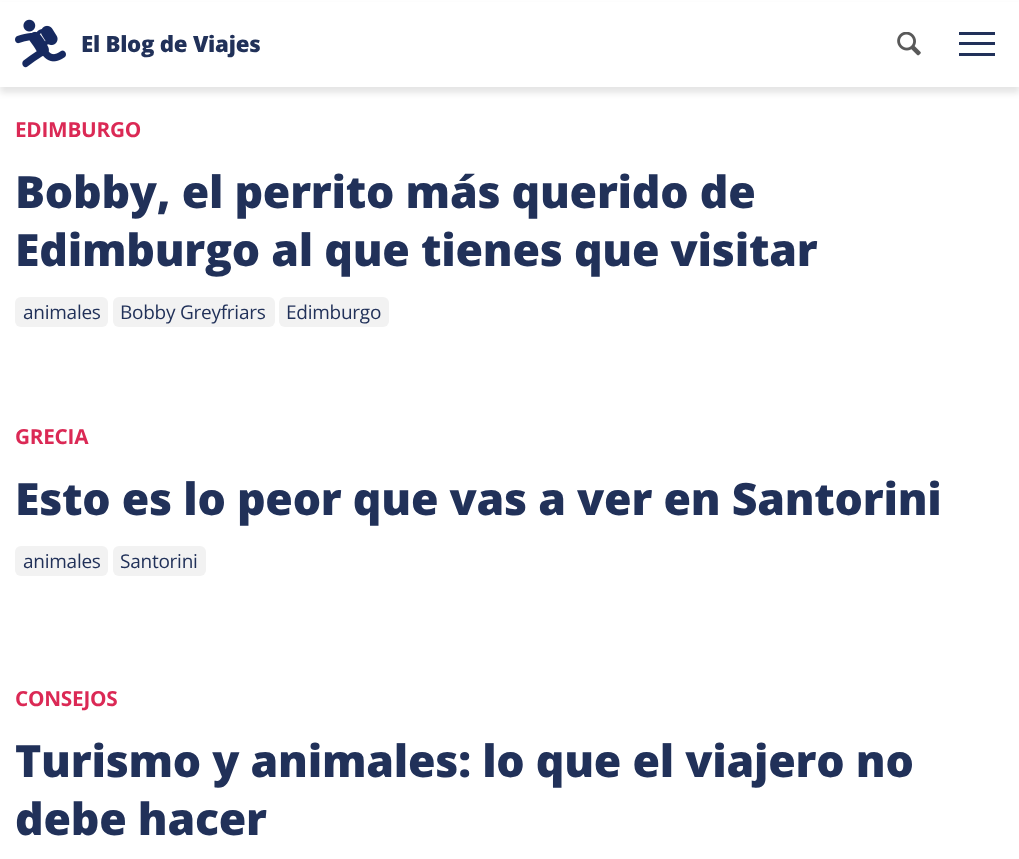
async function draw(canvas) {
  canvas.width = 1019
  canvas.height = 859
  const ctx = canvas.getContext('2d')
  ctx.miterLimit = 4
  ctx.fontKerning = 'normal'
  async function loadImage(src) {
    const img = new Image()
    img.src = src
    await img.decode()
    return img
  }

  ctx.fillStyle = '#fff'
  ctx.fillRect(0, 0, 1019, 859)
  ctx.fillStyle = '#0000001a'
  ctx.filter = 'blur(3px)'
  ctx.beginPath()
  ctx.rect(0, 6, 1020, 87)
  ctx.fill()
  ctx.filter = 'none'
  ctx.fillStyle = '#fff'
  ctx.fillRect(0, 2, 1019, 85)
  ctx.drawImage(await loadImage('image0.png'), 15, 19, 51, 49)
  ctx.letterSpacing = '-0.25px'
  ctx.font = '800 22.25px Open Sans'
  ctx.fillStyle = '#213159'
  ctx.fillText('El Blog de Viajes', 81, 52)
  ctx.drawImage(await loadImage('image1.png'), 897, 32, 24, 24)
  ctx.fillRect(959, 42, 36, 3)
  ctx.fillRect(959, 32, 36, 3)
  ctx.fillRect(959, 53, 36, 3)
  ctx.font = 'bold 20.75px Open Sans'
  ctx.fillStyle = '#db2955'
  ctx.fillText('EDIMBURGO', 15, 137)
  ctx.font = '800 44.6px Open Sans'
  ctx.fillStyle = '#213159'
  ctx.fillText('Bobby, el perrito más querido de', 15, 208)
  ctx.fillText('Edimburgo al que tienes que visitar', 15, 266)
  ctx.fillStyle = '#f2f2f2'
  ctx.beginPath()
  ctx.roundRect(15, 297, 93, 30, 6)
  ctx.fill()
  ctx.font = '19px Open Sans'
  ctx.fillStyle = '#213159'
  ctx.fillText('animales', 23, 319)
  ctx.fillStyle = '#f2f2f2'
  ctx.beginPath()
  ctx.roundRect(113, 297, 162, 30, 6)
  ctx.fill()
  ctx.fillStyle = '#213159'
  ctx.fillText('Bobby Greyfriars', 120, 319)
  ctx.fillStyle = '#f2f2f2'
  ctx.beginPath()
  ctx.roundRect(279, 297, 110, 30, 6)
  ctx.fill()
  ctx.fillStyle = '#213159'
  ctx.fillText('Edimburgo', 286, 319)
  ctx.font = 'bold 20.75px Open Sans'
  ctx.fillStyle = '#db2955'
  ctx.fillText('GRECIA', 15, 444)
  ctx.font = '800 44.6px Open Sans'
  ctx.fillStyle = '#213159'
  ctx.fillText('Esto es lo peor que vas a ver en Santorini', 15, 515)
  ctx.fillStyle = '#f2f2f2'
  ctx.beginPath()
  ctx.roundRect(15, 546, 93, 30, 6)
  ctx.fill()
  ctx.font = '19px Open Sans'
  ctx.fillStyle = '#213159'
  ctx.fillText('animales', 23, 568)
  ctx.fillStyle = '#f2f2f2'
  ctx.beginPath()
  ctx.roundRect(113, 546, 93, 30, 6)
  ctx.fill()
  ctx.fillStyle = '#213159'
  ctx.fillText('Santorini', 120, 568)
  ctx.font = 'bold 20.75px Open Sans'
  ctx.fillStyle = '#db2955'
  ctx.fillText('CONSEJOS', 15, 706)
  ctx.font = '800 44.6px Open Sans'
  ctx.fillStyle = '#213159'
  ctx.fillText('Turismo y animales: lo que el viajero no', 15, 777)
  ctx.fillText('debe hacer', 15, 835)
}

draw(document.querySelector('canvas'))
